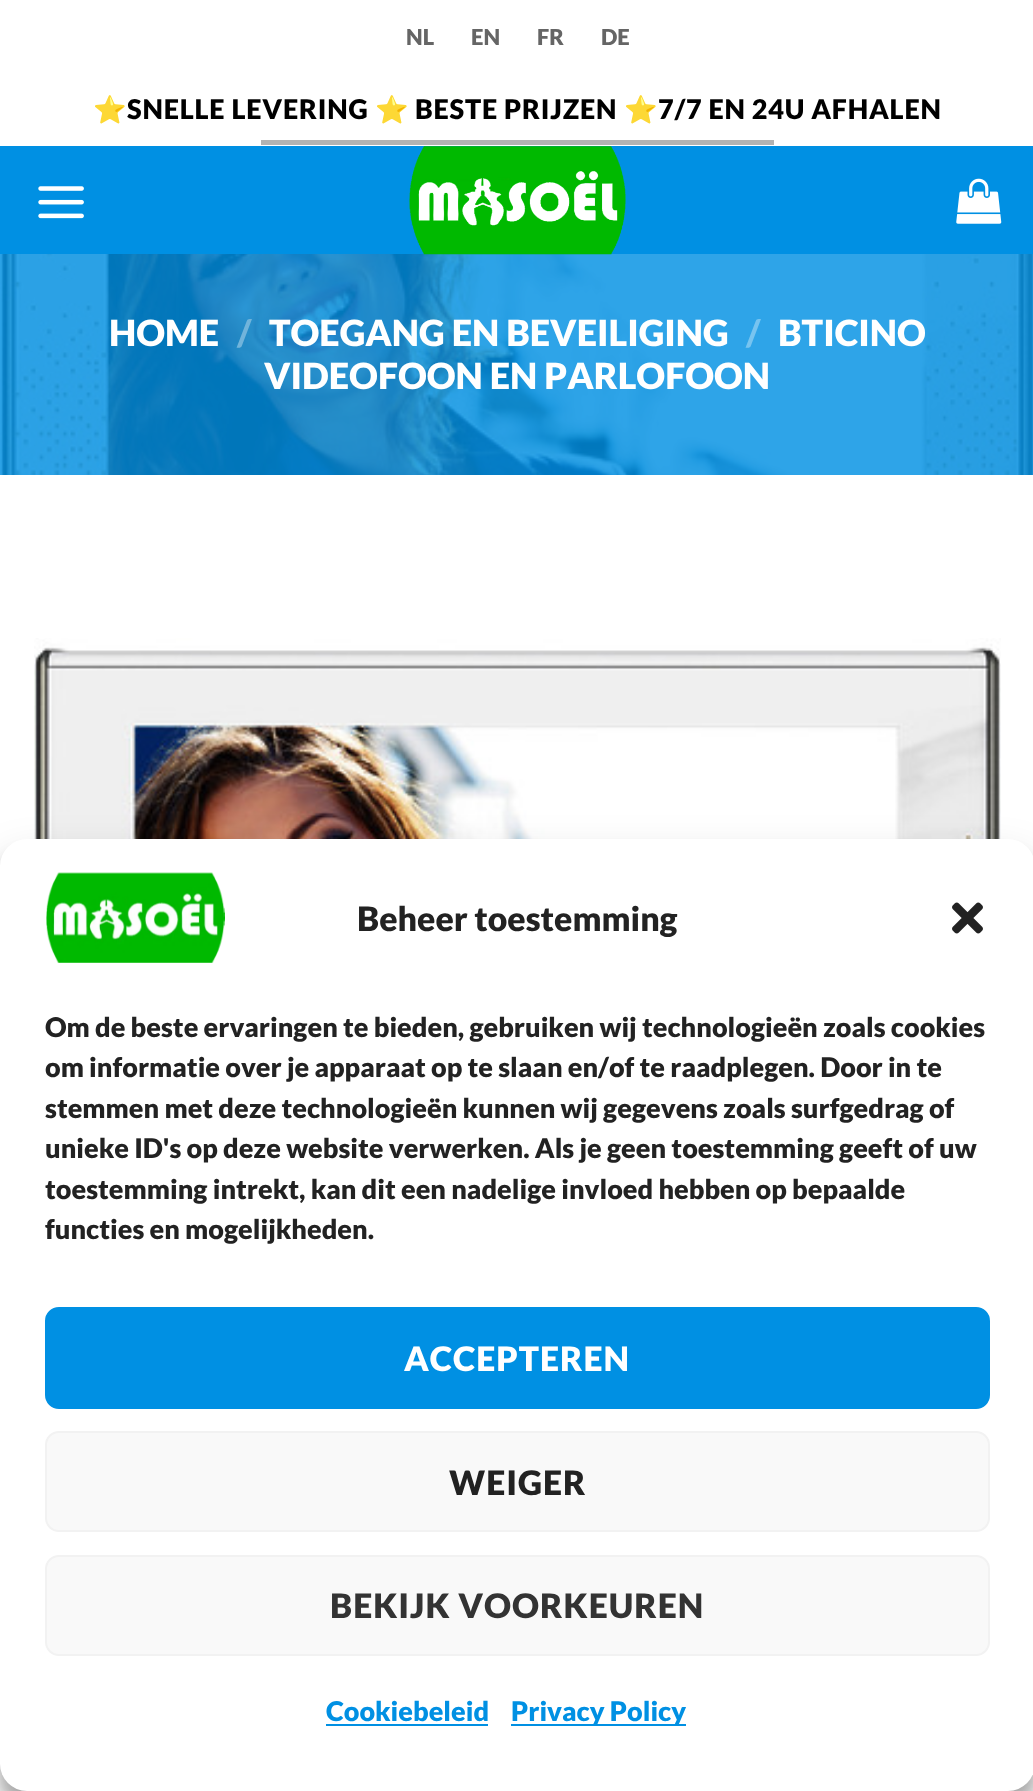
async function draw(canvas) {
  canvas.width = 1033
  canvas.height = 1791
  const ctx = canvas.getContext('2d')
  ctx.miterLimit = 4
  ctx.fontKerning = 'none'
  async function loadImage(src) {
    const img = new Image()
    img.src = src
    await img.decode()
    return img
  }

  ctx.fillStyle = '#fff'
  ctx.fillRect(0, 0, 1033, 1791)
  ctx.font = '900 22px Lato'
  ctx.fillStyle = '#656565'
  ctx.fillText('NL', 406, 45)
  ctx.fillText('EN', 471, 45)
  ctx.fillText('FR', 537, 45)
  ctx.fillText('DE', 601, 45)
  ctx.letterSpacing = '0.8px'
  ctx.font = 'bold 27px Noto Color Emoji'
  ctx.fillStyle = '#000'
  ctx.fillText('⭐', 93, 119)
  ctx.font = '900 27px Lato'
  ctx.fillText('SNELLE LEVERING', 127, 119)
  ctx.font = 'bold 27px Noto Color Emoji'
  ctx.fillText('⭐', 375, 119)
  ctx.font = '900 27px Lato'
  ctx.fillText('BESTE PRIJZEN', 415, 119)
  ctx.font = 'bold 27px Noto Color Emoji'
  ctx.fillText('⭐', 624, 119)
  ctx.font = '900 27px Lato'
  ctx.fillText('7/7 EN 24U AFHALEN', 658, 119)
  ctx.fillStyle = '#b3b3b3'
  ctx.fillRect(261, 140, 513, 5)
  ctx.fillStyle = '#0090e3'
  ctx.fillRect(0, 146, 1033, 108)
  ctx.drawImage(await loadImage('image0.png'), 38, 186, 46, 33)
  ctx.drawImage(await loadImage('image3.png'), 0, 254, 1033, 221)
  ctx.drawImage(await loadImage('image1.png'), 409, 146, 217, 109)
  ctx.drawImage(await loadImage('image2.png'), 956, 178, 46, 46)
  ctx.letterSpacing = '0px'
  ctx.font = '900 36px Lato'
  ctx.fillStyle = '#fff'
  ctx.fillText('HOME', 109, 346)
  ctx.fillStyle = '#71b4db'
  ctx.fillText('/', 237, 346)
  ctx.fillStyle = '#fff'
  ctx.fillText('TOEGANG EN BEVEILIGING', 269, 346)
  ctx.fillStyle = '#77c4f0'
  ctx.fillText('/', 746, 346)
  ctx.fillStyle = '#fff'
  ctx.fillText('BTICINO', 778, 346)
  ctx.fillText('VIDEOFOON EN PARLOFOON', 264, 389)
  ctx.drawImage(await loadImage('image4.png'), 34, 638, 967, 201)
  ctx.fillStyle = '#0000003b'
  ctx.filter = 'blur(7px)'
  ctx.beginPath()
  ctx.roundRect(0, 853, 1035, 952, 27)
  ctx.fill()
  ctx.filter = 'none'
  ctx.fillStyle = '#00000030'
  ctx.filter = 'blur(22.5px)'
  ctx.beginPath()
  ctx.roundRect(0, 862, 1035, 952, 27)
  ctx.fill()
  ctx.filter = 'none'
  ctx.fillStyle = '#fff'
  ctx.beginPath()
  ctx.roundRect(0, 839, 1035, 952, 27)
  ctx.fill()
  ctx.drawImage(await loadImage('image5.png'), 46, 872, 179, 91)
  ctx.font = '900 33.75px Lato'
  ctx.fillStyle = '#222'
  ctx.fillText('Beheer toestemming', 357, 931)
  ctx.drawImage(await loadImage('image6.png'), 952, 902, 31, 32)
  ctx.font = '900 27px Lato'
  ctx.fillText('Om de beste ervaringen te bieden, gebruiken wij technologieën zoals cookies', 45, 1037)
  ctx.fillText('om informatie over je apparaat op te slaan en/of te raadplegen. Door in te', 45, 1077)
  ctx.fillText('stemmen met deze technologieën kunnen wij gegevens zoals surfgedrag of', 45, 1118)
  ctx.fillText('unieke ID\'s op deze website verwerken. Als je geen toestemming geeft of uw', 45, 1158)
  ctx.fillText('toestemming intrekt, kan dit een nadelige invloed hebben op bepaalde', 45, 1199)
  ctx.fillText('functies en mogelijkheden.', 45, 1239)
  ctx.fillStyle = '#0090e3'
  ctx.beginPath()
  ctx.roundRect(46, 1308, 943, 100, 13)
  ctx.fill()
  ctx.strokeStyle = '#0090e3'
  ctx.lineWidth = 2
  ctx.stroke()
  ctx.letterSpacing = '1px'
  ctx.font = '900 33.75px Lato'
  ctx.fillStyle = '#fff'
  ctx.fillText('ACCEPTEREN', 404, 1371)
  ctx.fillStyle = '#f9f9f9'
  ctx.beginPath()
  ctx.roundRect(46, 1432, 943, 99, 13)
  ctx.fill()
  ctx.strokeStyle = '#f2f2f2'
  ctx.stroke()
  ctx.fillStyle = '#222'
  ctx.fillText('WEIGER', 449, 1495)
  ctx.fillStyle = '#f9f9f9'
  ctx.beginPath()
  ctx.roundRect(46, 1556, 943, 99, 13)
  ctx.fill()
  ctx.stroke()
  ctx.fillStyle = '#333'
  ctx.fillText('BEKIJK VOORKEUREN', 330, 1618)
  ctx.letterSpacing = '0px'
  ctx.font = '900 27px Lato'
  ctx.fillStyle = '#0090e3'
  ctx.fillText('Cookiebeleid', 326, 1721)
  ctx.fillRect(326, 1724, 162, 2)
  ctx.fillRect(511, 1724, 175, 2)
  ctx.fillText('Privacy Policy', 511, 1721)
}

draw(document.querySelector('canvas'))
